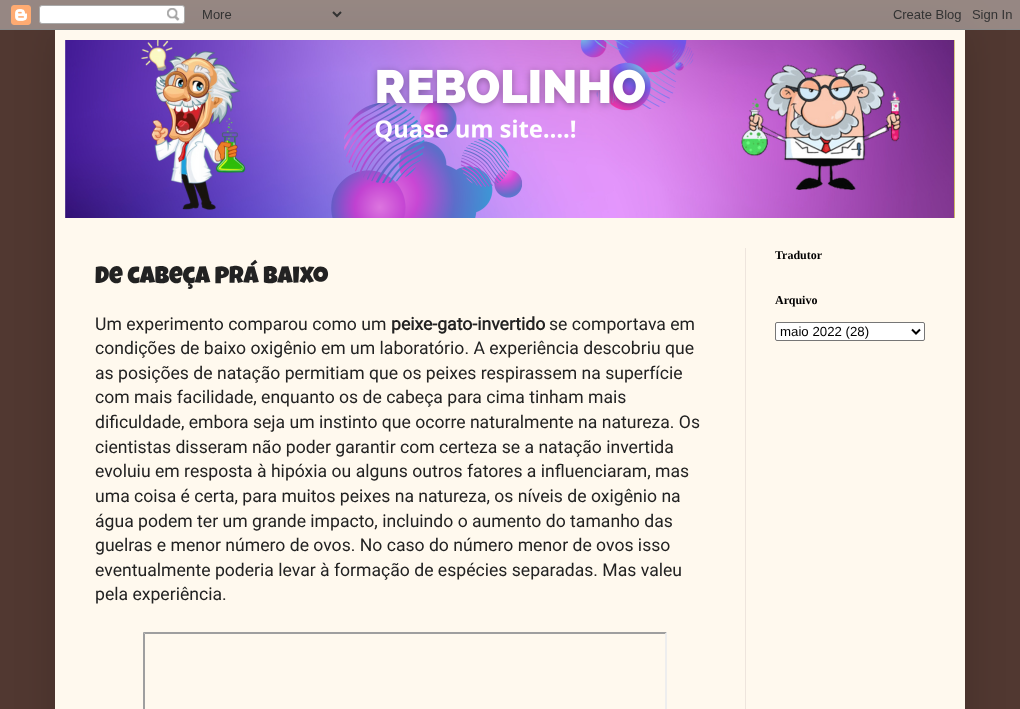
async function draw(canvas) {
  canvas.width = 1020
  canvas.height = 709
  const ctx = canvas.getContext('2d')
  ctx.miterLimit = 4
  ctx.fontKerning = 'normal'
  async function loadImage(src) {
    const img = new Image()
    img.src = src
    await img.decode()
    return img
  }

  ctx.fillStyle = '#513831'
  ctx.fillRect(0, 0, 1020, 709)
  ctx.fillStyle = '#00000026'
  ctx.filter = 'blur(20px)'
  ctx.beginPath()
  ctx.rect(55, 30, 910, 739)
  ctx.fill()
  ctx.filter = 'none'
  ctx.drawImage(await loadImage('image0.png'), 0, 0, 1020, 30)
  ctx.fillStyle = '#fff9ee'
  ctx.fillRect(55, 30, 910, 679)
  ctx.fillStyle = '#ccb666'
  ctx.fillRect(954, 40, 1, 178)
  ctx.drawImage(await loadImage('image1.png'), 954, 40, 1, 130)
  ctx.drawImage(await loadImage('image2.png'), 65, 40, 889, 178)
  ctx.fillStyle = '#eee5dd'
  ctx.fillRect(745, 248, 1, 461)
  ctx.font = '24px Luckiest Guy'
  ctx.fillStyle = '#222'
  ctx.fillText('De cabeça prá baixo', 95, 283)
  ctx.font = '17.6px Roboto'
  ctx.fillText('Um experimento comparou como um', 95, 330)
  ctx.font = 'bold 17.6px Roboto'
  ctx.fillText('peixe-gato-invertido', 391, 330)
  ctx.font = '17.6px Roboto'
  ctx.fillText('se comportava em', 549, 330)
  ctx.fillText('condições de baixo oxigênio em um laboratório. A experiência descobriu que', 95, 354)
  ctx.fillText('as posições de natação permitiam que os peixes respirassem na superfície', 95, 379)
  ctx.fillText('com mais facilidade, enquanto os de cabeça para cima tinham mais', 95, 403)
  ctx.fillText('dificuldade, embora seja um instinto que ocorre naturalmente na natureza. Os', 95, 428)
  ctx.fillText('cientistas disseram não poder garantir com certeza se a natação invertida', 95, 453)
  ctx.fillText('evoluiu em resposta à hipóxia ou alguns outros fatores a influenciaram, mas', 95, 477)
  ctx.fillText('uma coisa é certa, para muitos peixes na natureza, os níveis de oxigênio na', 95, 502)
  ctx.fillText('água podem ter um grande impacto, incluindo o aumento do tamanho das', 95, 527)
  ctx.fillText('guelras e menor número de ovos. No caso do número menor de ovos isso', 95, 551)
  ctx.fillText('eventualmente poderia levar à formação de espécies separadas. Mas valeu', 95, 576)
  ctx.fillText('pela experiência.', 95, 600)
  ctx.fillStyle = '#9f9f9f'
  ctx.beginPath()
  ctx.moveTo(143, 632)
  ctx.lineTo(667, 632)
  ctx.lineTo(665, 634)
  ctx.lineTo(145, 634)
  ctx.closePath()
  ctx.fill()
  ctx.beginPath()
  ctx.moveTo(143, 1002)
  ctx.lineTo(143, 632)
  ctx.lineTo(145, 634)
  ctx.lineTo(145, 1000)
  ctx.closePath()
  ctx.fill()
  ctx.fillStyle = '#eee'
  ctx.beginPath()
  ctx.moveTo(667, 632)
  ctx.lineTo(667, 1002)
  ctx.lineTo(665, 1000)
  ctx.lineTo(665, 634)
  ctx.closePath()
  ctx.fill()
  ctx.font = 'bold 12px Liberation Serif'
  ctx.fillStyle = '#000'
  ctx.fillText('Tradutor', 775, 259)
  ctx.fillText('Arquivo', 775, 304)
  ctx.fillStyle = '#fff'
  ctx.beginPath()
  ctx.roundRect(775.5, 322.5, 149, 18, 1.5)
  ctx.fill()
  ctx.strokeStyle = '#767676'
  ctx.stroke()
  ctx.beginPath()
  ctx.moveTo(912, 329.5)
  ctx.lineTo(916, 333.5)
  ctx.lineTo(920, 329.5)
  ctx.strokeStyle = '#000'
  ctx.lineWidth = 2
  ctx.stroke()
  ctx.font = '13.25px Liberation Sans'
  ctx.fillStyle = '#000'
  ctx.fillText('maio 2022 (28)', 780, 336)
}

draw(document.querySelector('canvas'))
